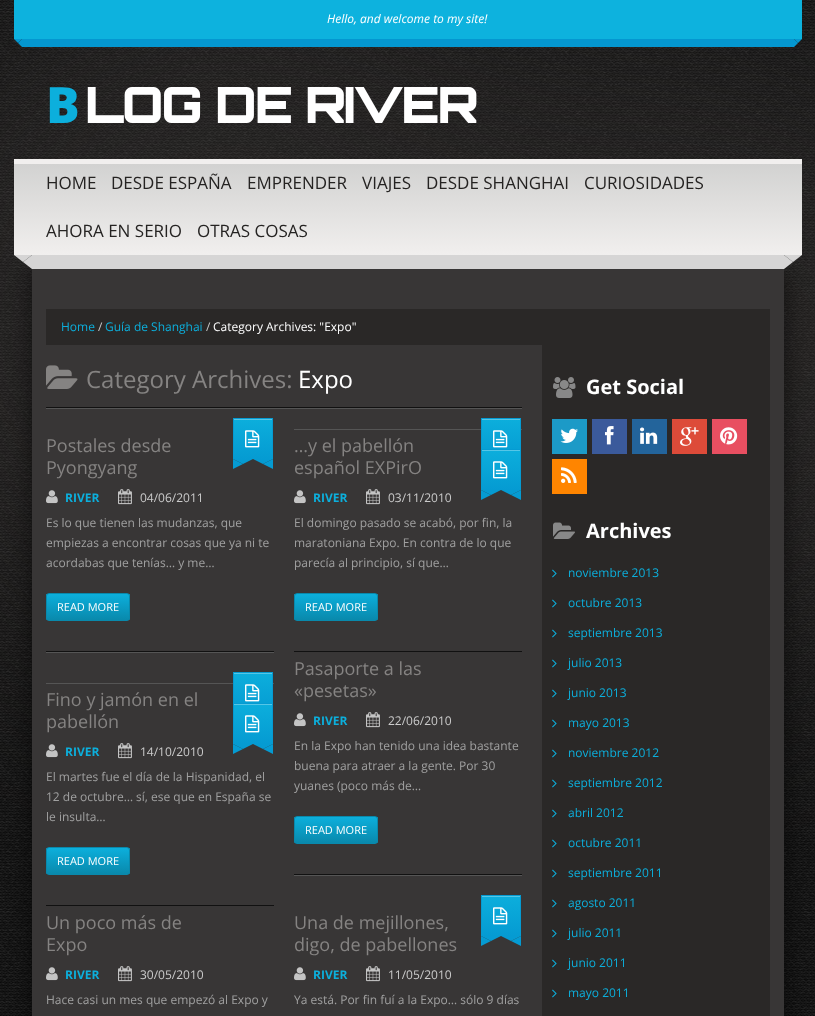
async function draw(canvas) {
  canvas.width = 815
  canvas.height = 1016
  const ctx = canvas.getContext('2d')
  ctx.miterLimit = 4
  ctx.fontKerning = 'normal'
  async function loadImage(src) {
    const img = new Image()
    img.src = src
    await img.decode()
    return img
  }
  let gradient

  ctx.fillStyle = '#fff'
  ctx.fillRect(0, 0, 815, 1016)
  ctx.drawImage(await loadImage('image0.png'), 0, 0, 815, 1016)
  ctx.drawImage(await loadImage('image1.png'), 0, 0, 815, 834)
  ctx.fillStyle = '#0db2de'
  ctx.fillRect(14, 0, 788, 39)
  ctx.font = 'italic 12px Open Sans'
  ctx.fillStyle = '#fff'
  ctx.fillText('Hello, and welcome to my site!', 327, 23)
  ctx.fillStyle = '#0497d0'
  ctx.fillRect(22, 39, 772, 8)
  ctx.beginPath()
  ctx.moveTo(14, 39)
  ctx.lineTo(22, 39)
  ctx.lineTo(18, 43)
  ctx.closePath()
  ctx.fill()
  ctx.beginPath()
  ctx.moveTo(22, 39)
  ctx.lineTo(22, 47)
  ctx.lineTo(18, 43)
  ctx.closePath()
  ctx.fill()
  ctx.beginPath()
  ctx.moveTo(794, 39)
  ctx.lineTo(802, 39)
  ctx.lineTo(798, 43)
  ctx.closePath()
  ctx.fill()
  ctx.beginPath()
  ctx.moveTo(794, 47)
  ctx.lineTo(794, 39)
  ctx.lineTo(798, 43)
  ctx.closePath()
  ctx.fill()
  ctx.letterSpacing = '-2px'
  ctx.font = '900 50px Noto Sans'
  ctx.fillStyle = '#0cafdc'
  ctx.fillText('B', 46, 123)
  ctx.font = '900 50px Orbitron'
  ctx.fillStyle = '#fff'
  ctx.fillText('LOG DE RIVER', 85, 123)
  ctx.fillStyle = '#00000099'
  ctx.filter = 'blur(12.5px)'
  ctx.beginPath()
  ctx.rect(32, 269, 752, 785)
  ctx.fill()
  ctx.filter = 'none'
  gradient = ctx.createLinearGradient(408, 164, 408, 255)
  gradient.addColorStop(0, '#d2d2d1')
  gradient.addColorStop(1, '#f1efee')
  ctx.fillStyle = gradient
  ctx.fillRect(14, 164, 788, 91)
  ctx.fillStyle = '#f1efee'
  ctx.fillRect(14, 159, 788, 5)
  ctx.letterSpacing = '0px'
  ctx.font = '17px Open Sans'
  ctx.fillStyle = '#252322'
  ctx.fillText('HOME', 46, 189)
  ctx.fillText('DESDE ESPAÑA', 111, 189)
  ctx.fillText('EMPRENDER', 247, 189)
  ctx.fillText('VIAJES', 362, 189)
  ctx.fillText('DESDE SHANGHAI', 426, 189)
  ctx.fillText('CURIOSIDADES', 584, 189)
  ctx.fillText('AHORA EN SERIO', 46, 237)
  ctx.fillText('OTRAS COSAS', 197, 237)
  ctx.fillStyle = '#d6d5d5'
  ctx.fillRect(32, 255, 752, 14)
  ctx.beginPath()
  ctx.moveTo(14, 255)
  ctx.lineTo(32, 255)
  ctx.lineTo(23, 262)
  ctx.closePath()
  ctx.fill()
  ctx.beginPath()
  ctx.moveTo(32, 255)
  ctx.lineTo(32, 269)
  ctx.lineTo(23, 262)
  ctx.closePath()
  ctx.fill()
  ctx.beginPath()
  ctx.moveTo(784, 255)
  ctx.lineTo(802, 255)
  ctx.lineTo(793, 262)
  ctx.closePath()
  ctx.fill()
  ctx.beginPath()
  ctx.moveTo(784, 269)
  ctx.lineTo(784, 255)
  ctx.lineTo(793, 262)
  ctx.closePath()
  ctx.fill()
  ctx.fillStyle = '#383636'
  ctx.fillRect(32, 269, 752, 747)
  ctx.fillStyle = '#2a2827'
  ctx.fillRect(46, 309, 724, 36)
  ctx.font = '12px Open Sans'
  ctx.fillStyle = '#0cafdc'
  ctx.fillText('Home', 61, 331)
  ctx.fillStyle = '#ccc'
  ctx.fillText('/', 98, 331)
  ctx.fillStyle = '#0cafdc'
  ctx.fillText('Guía de Shanghai', 105, 331)
  ctx.fillStyle = '#ccc'
  ctx.fillText('/', 206, 331)
  ctx.fillStyle = '#fff'
  ctx.fillText('Category Archives: "Expo"', 213, 331)
  ctx.fillStyle = '#555'
  ctx.fillRect(46, 408, 476, 1)
  ctx.drawImage(await loadImage('image2.png'), 46, 365, 32, 24)
  ctx.font = '24px Open Sans'
  ctx.fillStyle = '#858382'
  ctx.fillText('Category Archives:', 86, 388)
  ctx.fillStyle = '#fff'
  ctx.fillText('Expo', 298, 388)
  ctx.fillStyle = '#111'
  ctx.fillRect(46, 407, 476, 1)
  ctx.fillStyle = '#555'
  ctx.fillRect(46, 652, 228, 1)
  ctx.fillStyle = '#111'
  ctx.fillRect(46, 651, 228, 1)
  ctx.font = '18px Open Sans'
  ctx.fillStyle = '#858382'
  ctx.fillText('Postales desde', 46, 452)
  ctx.fillText('Pyongyang', 46, 474)
  gradient = ctx.createLinearGradient(253, 419, 253, 459)
  gradient.addColorStop(0, '#0caedc')
  gradient.addColorStop(1, '#059bd2')
  ctx.fillStyle = gradient
  ctx.fillRect(234, 420, 38, 39)
  ctx.fillStyle = '#55c6e7'
  ctx.fillRect(234, 419, 38, 1)
  ctx.fillStyle = '#059bd2'
  ctx.fillRect(233, 418, 40, 1)
  ctx.fillRect(272, 418, 1, 41)
  ctx.fillRect(233, 418, 1, 41)
  ctx.drawImage(await loadImage('image3.png'), 245, 430, 15, 18)
  ctx.beginPath()
  ctx.moveTo(233, 459)
  ctx.lineTo(253, 459)
  ctx.lineTo(243, 464)
  ctx.closePath()
  ctx.fill()
  ctx.beginPath()
  ctx.moveTo(233, 469)
  ctx.lineTo(233, 459)
  ctx.lineTo(243, 464)
  ctx.closePath()
  ctx.moveTo(253, 459)
  ctx.lineTo(273, 459)
  ctx.lineTo(263, 464)
  ctx.closePath()
  ctx.fill()
  ctx.beginPath()
  ctx.moveTo(273, 459)
  ctx.lineTo(273, 469)
  ctx.lineTo(263, 464)
  ctx.closePath()
  ctx.fill()
  ctx.drawImage(await loadImage('image4.png'), 46, 490, 12, 14)
  ctx.font = 'bold 12px Open Sans'
  ctx.fillStyle = '#0cafdc'
  ctx.fillText('RIVER', 65, 502)
  ctx.drawImage(await loadImage('image5.png'), 118, 489, 14, 16)
  ctx.font = '12px Open Sans'
  ctx.fillStyle = '#ccc'
  ctx.fillText('04/06/2011', 140, 502)
  ctx.fillStyle = '#a0a0a0'
  ctx.fillText('Es lo que tienen las mudanzas, que', 46, 527)
  ctx.fillText('empiezas a encontrar cosas que ya ni te', 46, 547)
  ctx.fillText('acordabas que tenías… y me…', 46, 567)
  ctx.save()
  ctx.beginPath()
  ctx.roundRect(46, 593, 84, 28, 3)
  ctx.clip()
  gradient = ctx.createLinearGradient(88, 594, 88, 620)
  gradient.addColorStop(0, '#0cafdc')
  gradient.addColorStop(1, '#0989ac')
  ctx.fillStyle = gradient
  ctx.fillRect(46, 594, 84, 26)
  ctx.restore()
  ctx.beginPath()
  ctx.roundRect(46.5, 593.5, 83, 27, 2.5)
  ctx.strokeStyle = '#0989ac'
  ctx.stroke()
  ctx.font = '11px Open Sans'
  ctx.fillStyle = '#fff'
  ctx.fillText('READ MORE', 57, 611)
  ctx.fillStyle = '#555'
  ctx.fillRect(46, 683, 228, 1)
  ctx.fillStyle = '#111'
  ctx.fillRect(46, 905, 228, 1)
  gradient = ctx.createLinearGradient(253, 673, 253, 713)
  gradient.addColorStop(0, '#0caedc')
  gradient.addColorStop(1, '#059bd2')
  ctx.fillStyle = gradient
  ctx.fillRect(234, 674, 38, 29)
  ctx.fillStyle = '#55c6e7'
  ctx.fillRect(234, 673, 38, 1)
  ctx.fillStyle = '#059bd2'
  ctx.fillRect(233, 672, 40, 1)
  ctx.fillRect(272, 672, 1, 31)
  ctx.fillRect(233, 672, 1, 31)
  ctx.drawImage(await loadImage('image3.png'), 245, 684, 15, 18)
  ctx.font = '18px Open Sans'
  ctx.fillStyle = '#858382'
  ctx.fillText('Fino y jamón en el', 46, 706)
  ctx.fillText('pabellón', 46, 728)
  ctx.drawImage(await loadImage('image4.png'), 46, 744, 12, 14)
  ctx.font = 'bold 12px Open Sans'
  ctx.fillStyle = '#0cafdc'
  ctx.fillText('RIVER', 65, 756)
  ctx.drawImage(await loadImage('image5.png'), 118, 743, 14, 16)
  ctx.font = '12px Open Sans'
  ctx.fillStyle = '#ccc'
  ctx.fillText('14/10/2010', 140, 756)
  ctx.fillStyle = '#a0a0a0'
  ctx.fillText('El martes fue el día de la Hispanidad, el', 46, 781)
  ctx.fillText('12 de octubre… sí, ese que en España se', 46, 801)
  ctx.fillText('le insulta…', 46, 821)
  ctx.save()
  ctx.beginPath()
  ctx.roundRect(46, 847, 84, 28, 3)
  ctx.clip()
  gradient = ctx.createLinearGradient(88, 848, 88, 874)
  gradient.addColorStop(0, '#0cafdc')
  gradient.addColorStop(1, '#0989ac')
  ctx.fillStyle = gradient
  ctx.fillRect(46, 848, 84, 26)
  ctx.restore()
  ctx.beginPath()
  ctx.roundRect(46.5, 847.5, 83, 27, 2.5)
  ctx.stroke()
  ctx.font = '11px Open Sans'
  ctx.fillStyle = '#fff'
  ctx.fillText('READ MORE', 57, 865)
  gradient = ctx.createLinearGradient(253, 704, 253, 744)
  gradient.addColorStop(0, '#0caedc')
  gradient.addColorStop(1, '#059bd2')
  ctx.fillStyle = gradient
  ctx.fillRect(234, 705, 38, 39)
  ctx.fillStyle = '#55c6e7'
  ctx.fillRect(234, 704, 38, 1)
  ctx.fillStyle = '#059bd2'
  ctx.fillRect(233, 703, 40, 1)
  ctx.fillRect(272, 703, 1, 41)
  ctx.fillRect(233, 703, 1, 41)
  ctx.drawImage(await loadImage('image3.png'), 245, 715, 15, 18)
  ctx.beginPath()
  ctx.moveTo(233, 744)
  ctx.lineTo(253, 744)
  ctx.lineTo(243, 749)
  ctx.closePath()
  ctx.fill()
  ctx.beginPath()
  ctx.moveTo(233, 754)
  ctx.lineTo(233, 744)
  ctx.lineTo(243, 749)
  ctx.closePath()
  ctx.moveTo(253, 744)
  ctx.lineTo(273, 744)
  ctx.lineTo(263, 749)
  ctx.closePath()
  ctx.fill()
  ctx.beginPath()
  ctx.moveTo(273, 744)
  ctx.lineTo(273, 754)
  ctx.lineTo(263, 749)
  ctx.closePath()
  ctx.fill()
  ctx.font = '18px Open Sans'
  ctx.fillStyle = '#858382'
  ctx.fillText('Un poco más de', 46, 929)
  ctx.fillText('Expo', 46, 951)
  ctx.drawImage(await loadImage('image4.png'), 46, 967, 12, 14)
  ctx.font = 'bold 12px Open Sans'
  ctx.fillStyle = '#0cafdc'
  ctx.fillText('RIVER', 65, 979)
  ctx.drawImage(await loadImage('image5.png'), 118, 966, 14, 16)
  ctx.font = '12px Open Sans'
  ctx.fillStyle = '#ccc'
  ctx.fillText('30/05/2010', 140, 979)
  ctx.fillStyle = '#a0a0a0'
  ctx.fillText('Hace casi un mes que empezó al Expo y', 46, 1004)
  ctx.fillStyle = '#555'
  ctx.fillRect(294, 429, 228, 1)
  ctx.fillStyle = '#111'
  ctx.fillRect(294, 651, 228, 1)
  gradient = ctx.createLinearGradient(501, 419, 501, 459)
  gradient.addColorStop(0, '#0caedc')
  gradient.addColorStop(1, '#059bd2')
  ctx.fillStyle = gradient
  ctx.fillRect(482, 420, 38, 29)
  ctx.fillStyle = '#55c6e7'
  ctx.fillRect(482, 419, 38, 1)
  ctx.fillStyle = '#059bd2'
  ctx.fillRect(481, 418, 40, 1)
  ctx.fillRect(520, 418, 1, 31)
  ctx.fillRect(481, 418, 1, 31)
  ctx.drawImage(await loadImage('image3.png'), 493, 430, 15, 18)
  ctx.font = '18px Open Sans'
  ctx.fillStyle = '#858382'
  ctx.fillText('…y el pabellón', 294, 452)
  ctx.fillText('español EXPirO', 294, 474)
  ctx.drawImage(await loadImage('image4.png'), 294, 490, 12, 14)
  ctx.font = 'bold 12px Open Sans'
  ctx.fillStyle = '#0cafdc'
  ctx.fillText('RIVER', 313, 502)
  ctx.drawImage(await loadImage('image5.png'), 366, 489, 14, 16)
  ctx.font = '12px Open Sans'
  ctx.fillStyle = '#ccc'
  ctx.fillText('03/11/2010', 388, 502)
  ctx.fillStyle = '#a0a0a0'
  ctx.fillText('El domingo pasado se acabó, por fin, la', 294, 527)
  ctx.fillText('maratoniana Expo. En contra de lo que', 294, 547)
  ctx.fillText('parecía al principio, sí que…', 294, 567)
  ctx.save()
  ctx.beginPath()
  ctx.roundRect(294, 593, 84, 28, 3)
  ctx.clip()
  gradient = ctx.createLinearGradient(336, 594, 336, 620)
  gradient.addColorStop(0, '#0cafdc')
  gradient.addColorStop(1, '#0989ac')
  ctx.fillStyle = gradient
  ctx.fillRect(294, 594, 84, 26)
  ctx.restore()
  ctx.beginPath()
  ctx.roundRect(294.5, 593.5, 83, 27, 2.5)
  ctx.stroke()
  ctx.font = '11px Open Sans'
  ctx.fillStyle = '#fff'
  ctx.fillText('READ MORE', 305, 611)
  ctx.fillStyle = '#555'
  ctx.fillRect(294, 875, 228, 1)
  ctx.fillStyle = '#111'
  ctx.fillRect(294, 874, 228, 1)
  gradient = ctx.createLinearGradient(501, 450, 501, 490)
  gradient.addColorStop(0, '#0caedc')
  gradient.addColorStop(1, '#059bd2')
  ctx.fillStyle = gradient
  ctx.fillRect(482, 451, 38, 39)
  ctx.fillStyle = '#55c6e7'
  ctx.fillRect(482, 450, 38, 1)
  ctx.fillStyle = '#059bd2'
  ctx.fillRect(481, 449, 40, 1)
  ctx.fillRect(520, 449, 1, 41)
  ctx.fillRect(481, 449, 1, 41)
  ctx.drawImage(await loadImage('image3.png'), 493, 461, 15, 18)
  ctx.beginPath()
  ctx.moveTo(481, 490)
  ctx.lineTo(501, 490)
  ctx.lineTo(491, 495)
  ctx.closePath()
  ctx.fill()
  ctx.beginPath()
  ctx.moveTo(481, 500)
  ctx.lineTo(481, 490)
  ctx.lineTo(491, 495)
  ctx.closePath()
  ctx.moveTo(501, 490)
  ctx.lineTo(521, 490)
  ctx.lineTo(511, 495)
  ctx.closePath()
  ctx.fill()
  ctx.beginPath()
  ctx.moveTo(521, 490)
  ctx.lineTo(521, 500)
  ctx.lineTo(511, 495)
  ctx.closePath()
  ctx.fill()
  ctx.font = '18px Open Sans'
  ctx.fillStyle = '#858382'
  ctx.fillText('Pasaporte a las', 294, 675)
  ctx.fillText('«pesetas»', 294, 697)
  ctx.drawImage(await loadImage('image4.png'), 294, 713, 12, 14)
  ctx.font = 'bold 12px Open Sans'
  ctx.fillStyle = '#0cafdc'
  ctx.fillText('RIVER', 313, 725)
  ctx.drawImage(await loadImage('image5.png'), 366, 712, 14, 16)
  ctx.font = '12px Open Sans'
  ctx.fillStyle = '#ccc'
  ctx.fillText('22/06/2010', 388, 725)
  ctx.fillStyle = '#a0a0a0'
  ctx.fillText('En la Expo han tenido una idea bastante', 294, 750)
  ctx.fillText('buena para atraer a la gente. Por 30', 294, 770)
  ctx.fillText('yuanes (poco más de…', 294, 790)
  ctx.save()
  ctx.beginPath()
  ctx.roundRect(294, 816, 84, 28, 3)
  ctx.clip()
  gradient = ctx.createLinearGradient(336, 817, 336, 843)
  gradient.addColorStop(0, '#0cafdc')
  gradient.addColorStop(1, '#0989ac')
  ctx.fillStyle = gradient
  ctx.fillRect(294, 817, 84, 26)
  ctx.restore()
  ctx.beginPath()
  ctx.roundRect(294.5, 816.5, 83, 27, 2.5)
  ctx.stroke()
  ctx.font = '11px Open Sans'
  ctx.fillStyle = '#fff'
  ctx.fillText('READ MORE', 305, 834)
  ctx.font = '18px Open Sans'
  ctx.fillStyle = '#858382'
  ctx.fillText('Una de mejillones,', 294, 929)
  ctx.fillText('digo, de pabellones', 294, 951)
  gradient = ctx.createLinearGradient(501, 896, 501, 936)
  gradient.addColorStop(0, '#0caedc')
  gradient.addColorStop(1, '#059bd2')
  ctx.fillStyle = gradient
  ctx.fillRect(482, 897, 38, 39)
  ctx.fillStyle = '#55c6e7'
  ctx.fillRect(482, 896, 38, 1)
  ctx.fillStyle = '#059bd2'
  ctx.fillRect(481, 895, 40, 1)
  ctx.fillRect(520, 895, 1, 41)
  ctx.fillRect(481, 895, 1, 41)
  ctx.drawImage(await loadImage('image3.png'), 493, 907, 15, 18)
  ctx.beginPath()
  ctx.moveTo(481, 936)
  ctx.lineTo(501, 936)
  ctx.lineTo(491, 941)
  ctx.closePath()
  ctx.fill()
  ctx.beginPath()
  ctx.moveTo(481, 946)
  ctx.lineTo(481, 936)
  ctx.lineTo(491, 941)
  ctx.closePath()
  ctx.moveTo(501, 936)
  ctx.lineTo(521, 936)
  ctx.lineTo(511, 941)
  ctx.closePath()
  ctx.fill()
  ctx.beginPath()
  ctx.moveTo(521, 936)
  ctx.lineTo(521, 946)
  ctx.lineTo(511, 941)
  ctx.closePath()
  ctx.fill()
  ctx.drawImage(await loadImage('image4.png'), 294, 967, 12, 14)
  ctx.font = 'bold 12px Open Sans'
  ctx.fillStyle = '#0cafdc'
  ctx.fillText('RIVER', 313, 979)
  ctx.drawImage(await loadImage('image5.png'), 366, 966, 14, 16)
  ctx.font = '12px Open Sans'
  ctx.fillStyle = '#ccc'
  ctx.fillText('11/05/2010', 388, 979)
  ctx.fillStyle = '#a0a0a0'
  ctx.fillText('Ya está. Por fin fuí a la Expo… sólo 9 días', 294, 1004)
  ctx.fillStyle = '#2a2827'
  ctx.fillRect(542, 345, 228, 671)
  ctx.drawImage(await loadImage('image6.png'), 553, 377, 23, 21)
  ctx.font = 'bold 20px Open Sans'
  ctx.fillStyle = '#fff'
  ctx.fillText('Get Social', 586, 394)
  ctx.fillStyle = '#1c9ac7'
  ctx.fillRect(552, 419, 35, 35)
  ctx.drawImage(await loadImage('image7.png'), 560, 428, 18, 15)
  ctx.fillStyle = '#3b5a9b'
  ctx.fillRect(592, 419, 35, 35)
  ctx.drawImage(await loadImage('image8.png'), 605, 426, 9, 19)
  ctx.fillStyle = '#23649b'
  ctx.fillRect(632, 419, 35, 35)
  ctx.drawImage(await loadImage('image9.png'), 640, 427, 18, 17)
  ctx.fillStyle = '#dd4b39'
  ctx.fillRect(672, 419, 35, 35)
  ctx.drawImage(await loadImage('image10.png'), 680, 427, 19, 19)
  ctx.fillStyle = '#e84f61'
  ctx.fillRect(712, 419, 35, 35)
  ctx.drawImage(await loadImage('image11.png'), 720, 427, 18, 18)
  ctx.fillStyle = '#ff8500'
  ctx.fillRect(552, 459, 35, 35)
  ctx.drawImage(await loadImage('image12.png'), 561, 467, 16, 16)
  ctx.drawImage(await loadImage('image13.png'), 553, 522, 22, 17)
  ctx.fillStyle = '#fff'
  ctx.fillText('Archives', 586, 538)
  ctx.drawImage(await loadImage('image14.png'), 552, 569, 5, 9)
  ctx.font = '12px Open Sans'
  ctx.fillStyle = '#0cafdc'
  ctx.fillText('noviembre 2013', 568, 577)
  ctx.drawImage(await loadImage('image14.png'), 552, 599, 5, 9)
  ctx.fillText('octubre 2013', 568, 607)
  ctx.drawImage(await loadImage('image14.png'), 552, 629, 5, 9)
  ctx.fillText('septiembre 2013', 568, 637)
  ctx.drawImage(await loadImage('image14.png'), 552, 659, 5, 9)
  ctx.fillText('julio 2013', 568, 667)
  ctx.drawImage(await loadImage('image14.png'), 552, 689, 5, 9)
  ctx.fillText('junio 2013', 568, 697)
  ctx.drawImage(await loadImage('image14.png'), 552, 719, 5, 9)
  ctx.fillText('mayo 2013', 568, 727)
  ctx.drawImage(await loadImage('image14.png'), 552, 749, 5, 9)
  ctx.fillText('noviembre 2012', 568, 757)
  ctx.drawImage(await loadImage('image14.png'), 552, 779, 5, 9)
  ctx.fillText('septiembre 2012', 568, 787)
  ctx.drawImage(await loadImage('image14.png'), 552, 809, 5, 9)
  ctx.fillText('abril 2012', 568, 817)
  ctx.drawImage(await loadImage('image14.png'), 552, 839, 5, 9)
  ctx.fillText('octubre 2011', 568, 847)
  ctx.drawImage(await loadImage('image14.png'), 552, 869, 5, 9)
  ctx.fillText('septiembre 2011', 568, 877)
  ctx.drawImage(await loadImage('image14.png'), 552, 899, 5, 9)
  ctx.fillText('agosto 2011', 568, 907)
  ctx.drawImage(await loadImage('image14.png'), 552, 929, 5, 9)
  ctx.fillText('julio 2011', 568, 937)
  ctx.drawImage(await loadImage('image14.png'), 552, 959, 5, 9)
  ctx.fillText('junio 2011', 568, 967)
  ctx.drawImage(await loadImage('image14.png'), 552, 989, 5, 9)
  ctx.fillText('mayo 2011', 568, 997)
}

draw(document.querySelector('canvas'))
